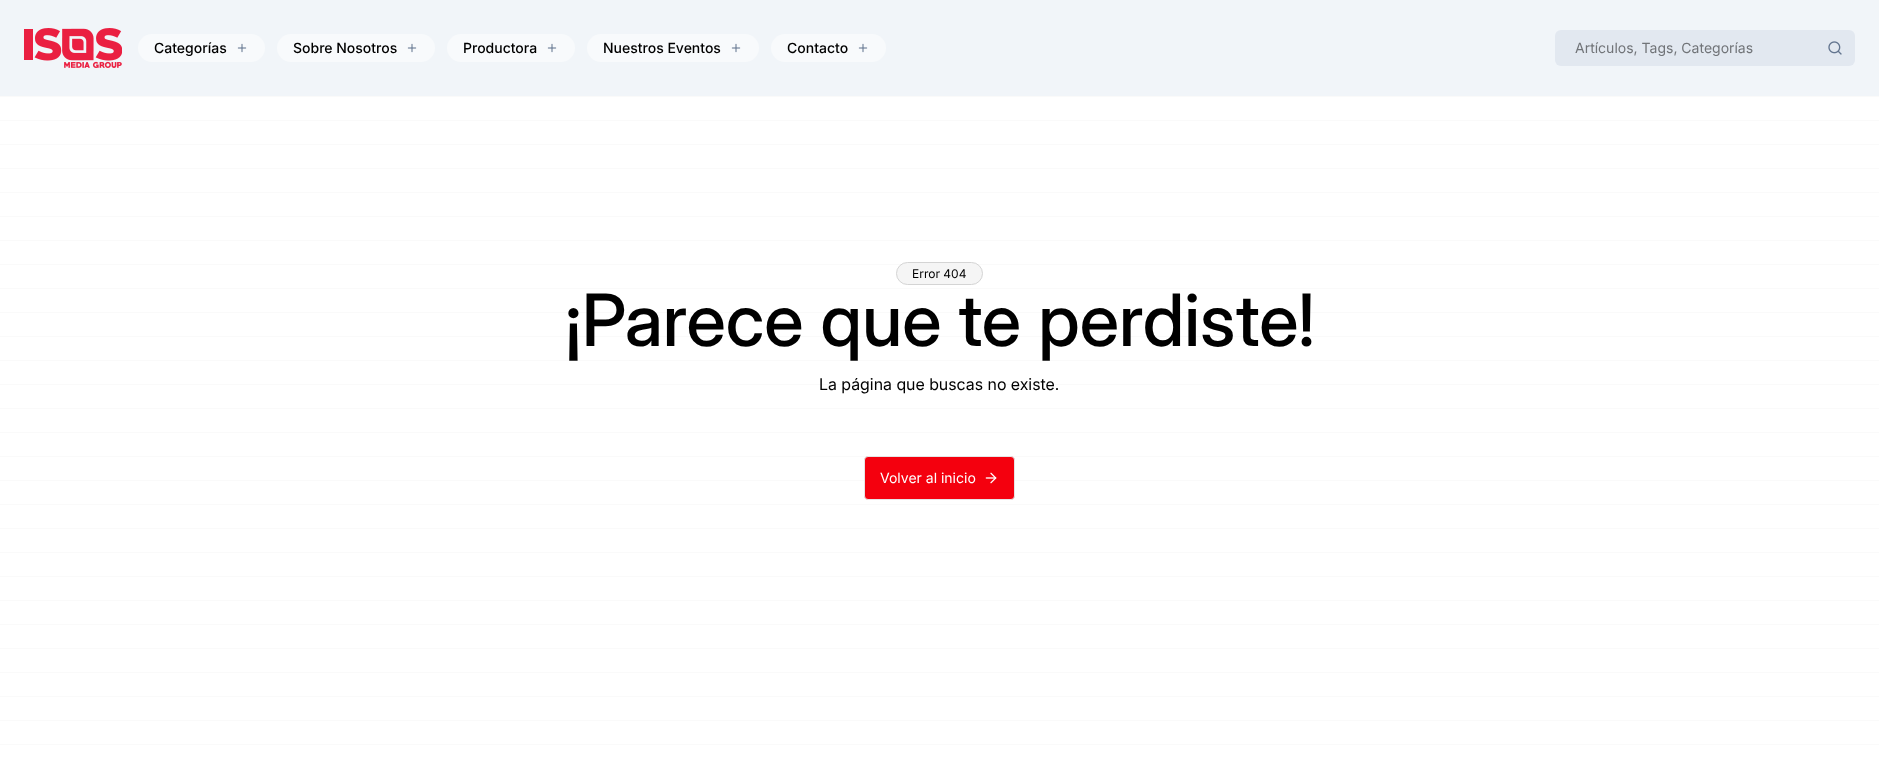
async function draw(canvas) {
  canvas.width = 1879
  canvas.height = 760
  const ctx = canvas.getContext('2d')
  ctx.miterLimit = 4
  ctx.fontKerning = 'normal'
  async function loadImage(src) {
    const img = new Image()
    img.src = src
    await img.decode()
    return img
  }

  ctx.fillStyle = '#fff'
  ctx.fillRect(0, 0, 1879, 760)
  ctx.drawImage(await loadImage('image0.png'), 0, 96, 1879, 649)
  ctx.fillStyle = '#f1f5f9'
  ctx.fillRect(0, 0, 1879, 96)
  ctx.drawImage(await loadImage('image1.png'), 24, 28, 98, 40)
  ctx.fillStyle = '#f8fafc'
  ctx.beginPath()
  ctx.roundRect(138, 34, 127, 28, 14)
  ctx.fill()
  ctx.font = '500 14px "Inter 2"'
  ctx.fillStyle = '#000'
  ctx.fillText('Categorías', 154, 53)
  ctx.drawImage(await loadImage('image2.png'), 237, 43, 10, 10)
  ctx.fillStyle = '#f8fafc'
  ctx.beginPath()
  ctx.roundRect(277, 34, 158, 28, 14)
  ctx.fill()
  ctx.fillStyle = '#000'
  ctx.fillText('Sobre Nosotros', 293, 53)
  ctx.drawImage(await loadImage('image2.png'), 407, 43, 10, 10)
  ctx.fillStyle = '#f8fafc'
  ctx.beginPath()
  ctx.roundRect(447, 34, 128, 28, 14)
  ctx.fill()
  ctx.fillStyle = '#000'
  ctx.fillText('Productora', 463, 53)
  ctx.drawImage(await loadImage('image2.png'), 547, 43, 10, 10)
  ctx.fillStyle = '#f8fafc'
  ctx.beginPath()
  ctx.roundRect(587, 34, 172, 28, 14)
  ctx.fill()
  ctx.fillStyle = '#000'
  ctx.fillText('Nuestros Eventos', 603, 53)
  ctx.drawImage(await loadImage('image2.png'), 731, 43, 10, 10)
  ctx.fillStyle = '#f8fafc'
  ctx.beginPath()
  ctx.roundRect(771, 34, 115, 28, 14)
  ctx.fill()
  ctx.fillStyle = '#000'
  ctx.fillText('Contacto', 787, 53)
  ctx.drawImage(await loadImage('image2.png'), 858, 43, 10, 10)
  ctx.fillStyle = '#e2e8f0'
  ctx.beginPath()
  ctx.roundRect(1555, 30, 300, 36, 6)
  ctx.fill()
  ctx.font = '14px Inter'
  ctx.fillStyle = '#717478'
  ctx.fillText('Artículos, Tags, Categorías', 1575, 53)
  ctx.drawImage(await loadImage('image3.png'), 1828, 41, 14, 14)
  ctx.fillStyle = '#f5f5f5'
  ctx.beginPath()
  ctx.roundRect(896.5, 262.5, 86, 22, 11)
  ctx.fill()
  ctx.strokeStyle = '#d4d4d4'
  ctx.stroke()
  ctx.font = '12px Inter'
  ctx.fillStyle = '#000'
  ctx.fillText('Error 404', 912, 278)
  ctx.font = '500 72px Inter'
  ctx.fillText('¡Parece que te perdiste!', 565, 346)
  ctx.font = '16px "Inter 2"'
  ctx.fillText('La página que buscas no existe.', 819, 390)
  ctx.fillStyle = '#f4000e'
  ctx.beginPath()
  ctx.roundRect(864.5, 456.5, 150, 43, 3.5)
  ctx.fill()
  ctx.strokeStyle = '#e5e5e5'
  ctx.stroke()
  ctx.font = '14px Inter'
  ctx.fillStyle = '#fff'
  ctx.fillText('Volver al inicio', 880, 483)
  ctx.drawImage(await loadImage('image4.png'), 985, 472, 12, 12)
}

draw(document.querySelector('canvas'))
